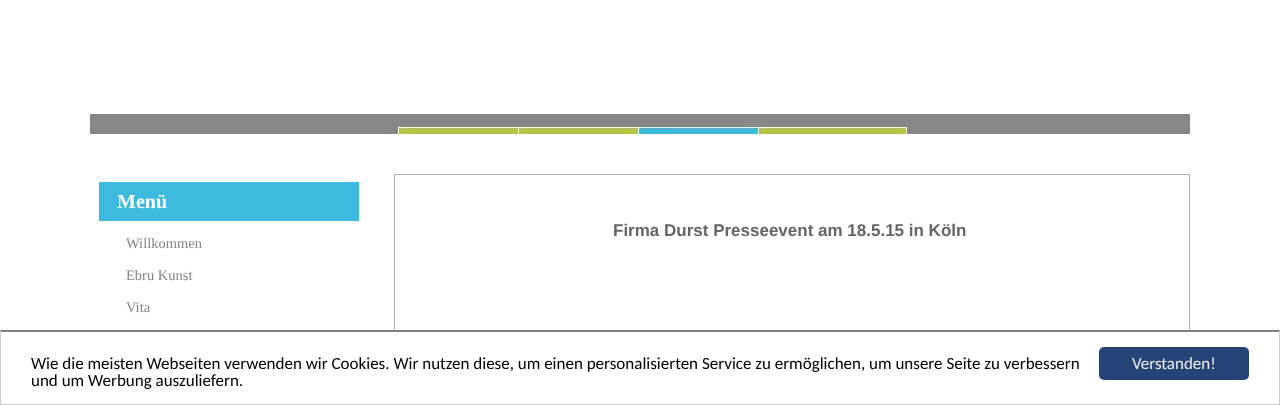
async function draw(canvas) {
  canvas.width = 1280
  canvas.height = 405
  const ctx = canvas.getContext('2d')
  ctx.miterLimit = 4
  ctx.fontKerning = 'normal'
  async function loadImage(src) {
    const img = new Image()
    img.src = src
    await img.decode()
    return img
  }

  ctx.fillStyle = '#fff'
  ctx.fillRect(0, 0, 1280, 405)
  ctx.fillStyle = '#878787'
  ctx.fillRect(90, 114, 1100, 20)
  ctx.drawImage(await loadImage('image0.png'), 398, 127, 509, 7)
  ctx.fillStyle = '#3cbbde'
  ctx.fillRect(99, 182, 260, 39)
  ctx.font = 'bold 20px Liberation Serif'
  ctx.fillStyle = '#fff'
  ctx.fillText('Menü', 117, 208)
  ctx.font = '14.5px Liberation Serif'
  ctx.fillStyle = '#878787'
  ctx.fillText('Willkommen', 126, 248)
  ctx.fillText('Ebru Kunst', 126, 280)
  ctx.fillText('Vita', 126, 312)
  ctx.strokeStyle = '#b4b4b4'
  ctx.strokeRect(394.5, 174.5, 795, 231)
  ctx.font = 'bold 17px Liberation Sans'
  ctx.fillStyle = '#666'
  ctx.fillText('Firma Durst Presseevent am 18.5.15 in Köln', 613, 236)
  ctx.fillStyle = '#fff'
  ctx.fillRect(394, 332, 796, 72)
  ctx.fillStyle = '#808080'
  ctx.beginPath()
  ctx.moveTo(0, 330)
  ctx.lineTo(1280, 330)
  ctx.lineTo(1279, 332)
  ctx.lineTo(1, 332)
  ctx.closePath()
  ctx.fill()
  ctx.fillStyle = '#ccc'
  ctx.beginPath()
  ctx.moveTo(1280, 330)
  ctx.lineTo(1280, 405)
  ctx.lineTo(1279, 404)
  ctx.lineTo(1279, 332)
  ctx.closePath()
  ctx.fill()
  ctx.fillRect(0, 404, 1280, 1)
  ctx.beginPath()
  ctx.moveTo(0, 405)
  ctx.lineTo(0, 330)
  ctx.lineTo(1, 332)
  ctx.lineTo(1, 404)
  ctx.closePath()
  ctx.fill()
  ctx.font = '17px Carlito'
  ctx.fillStyle = '#000'
  ctx.fillText('Wie die meisten Webseiten verwenden wir Cookies. Wir nutzen diese, um einen personalisierten Service zu ermöglichen, um unsere Seite zu verbessern', 31, 369)
  ctx.fillText('und um Werbung auszuliefern.', 31, 386)
  ctx.fillStyle = '#274479'
  ctx.beginPath()
  ctx.roundRect(1099, 347, 150, 33, 5)
  ctx.fill()
  ctx.fillStyle = '#eee'
  ctx.fillText('Verstanden!', 1132, 369)
}

draw(document.querySelector('canvas'))
